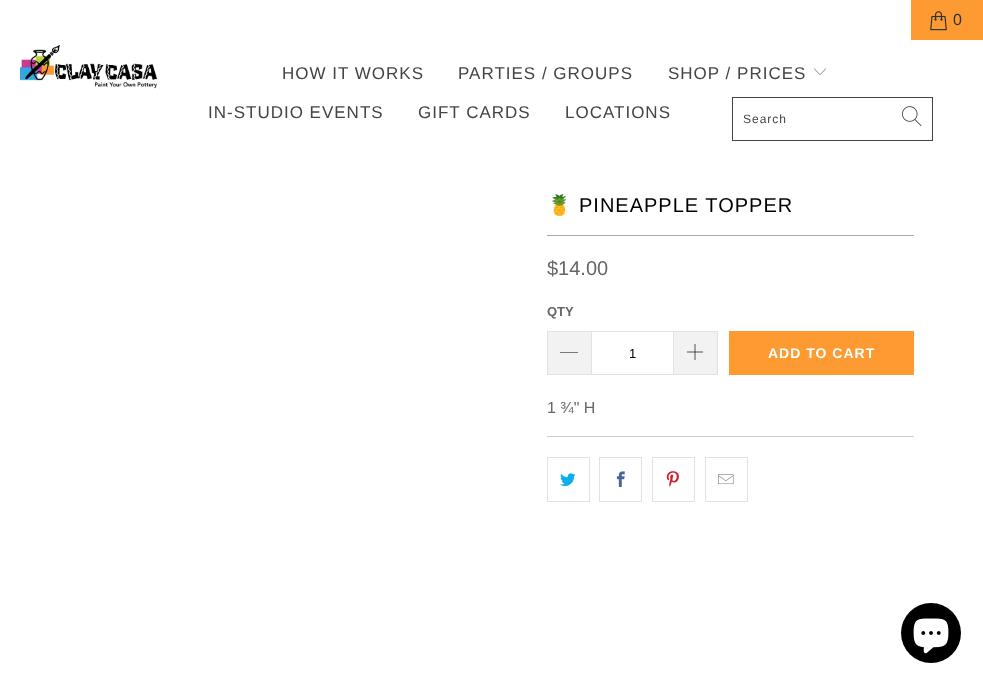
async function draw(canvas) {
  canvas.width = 983
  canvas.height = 684
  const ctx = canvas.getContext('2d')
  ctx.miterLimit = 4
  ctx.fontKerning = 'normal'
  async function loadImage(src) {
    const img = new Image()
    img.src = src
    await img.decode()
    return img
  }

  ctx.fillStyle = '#fff'
  ctx.fillRect(0, 0, 983, 684)
  ctx.fillStyle = '#fd9a31'
  ctx.fillRect(911, 0, 72, 40)
  ctx.drawImage(await loadImage('image0.png'), 930, 11, 17, 20)
  ctx.letterSpacing = '1px'
  ctx.font = '16px Liberation Sans'
  ctx.fillStyle = '#333'
  ctx.fillText('0', 953, 25)
  ctx.drawImage(await loadImage('image1.png'), 20, 45, 137, 44)
  ctx.font = '17px Liberation Sans'
  ctx.fillStyle = '#444'
  ctx.fillText('HOW IT WORKS', 282, 79)
  ctx.fillText('PARTIES / GROUPS', 458, 79)
  ctx.fillText('SHOP / PRICES', 668, 79)
  ctx.drawImage(await loadImage('image2.png'), 814, 68, 12, 7)
  ctx.fillText('IN-STUDIO EVENTS', 208, 118)
  ctx.fillText('GIFT CARDS', 418, 118)
  ctx.fillText('LOCATIONS', 565, 118)
  ctx.strokeStyle = '#444'
  ctx.strokeRect(732.5, 97.5, 200, 43)
  ctx.font = '12px Liberation Sans'
  ctx.fillText('Search', 743, 123)
  ctx.drawImage(await loadImage('image3.png'), 902, 106, 20, 21)
  ctx.font = '20px Noto Color Emoji'
  ctx.fillStyle = '#000'
  ctx.fillText('🍍', 547, 212)
  ctx.font = '20px Liberation Sans'
  ctx.fillText('PINEAPPLE TOPPER', 579, 212)
  ctx.fillStyle = '#aaa'
  ctx.fillRect(547, 235, 367, 1)
  ctx.letterSpacing = '0px'
  ctx.fillStyle = '#666'
  ctx.fillText('$14.00', 547, 275)
  ctx.font = 'bold 13px Liberation Sans'
  ctx.fillText('QTY', 547, 316)
  ctx.fillStyle = '#f2f2f2'
  ctx.fillRect(548, 332, 43, 42)
  ctx.fillStyle = '#e2e2e2'
  ctx.fillRect(547, 331, 44, 1)
  ctx.fillRect(547, 374, 44, 1)
  ctx.fillRect(547, 331, 1, 44)
  ctx.fillStyle = '#000'
  ctx.beginPath()
  ctx.moveTo(560, 352)
  ctx.lineTo(578, 352)
  ctx.lineTo(578, 352.5)
  ctx.lineTo(560, 352.5)
  ctx.closePath()
  ctx.fill()
  ctx.strokeStyle = '#e2e2e2'
  ctx.strokeRect(591.5, 331.5, 82, 43)
  ctx.font = '13px Liberation Sans'
  ctx.fillText('1', 629, 358)
  ctx.fillStyle = '#f2f2f2'
  ctx.fillRect(674, 332, 43, 42)
  ctx.fillStyle = '#e2e2e2'
  ctx.fillRect(674, 331, 44, 1)
  ctx.fillRect(717, 331, 1, 44)
  ctx.fillRect(674, 374, 44, 1)
  ctx.drawImage(await loadImage('image4.png'), 687, 344, 16, 16)
  ctx.fillStyle = '#fd9a31'
  ctx.fillRect(729, 331, 185, 44)
  ctx.letterSpacing = '1px'
  ctx.font = 'bold 14px Liberation Sans'
  ctx.fillStyle = '#fff'
  ctx.fillText('ADD TO CART', 768, 358)
  ctx.letterSpacing = '0px'
  ctx.font = '16px Liberation Sans'
  ctx.fillStyle = '#666'
  ctx.fillText('1 ¾" H', 547, 413)
  ctx.fillStyle = '#ccc'
  ctx.fillRect(547, 436, 367, 1)
  ctx.strokeRect(547.5, 457.5, 42, 44)
  ctx.drawImage(await loadImage('image5.png'), 560, 473, 16, 13)
  ctx.strokeRect(599.5, 457.5, 42, 44)
  ctx.drawImage(await loadImage('image6.png'), 616, 471, 9, 16)
  ctx.strokeRect(652.5, 457.5, 42, 44)
  ctx.drawImage(await loadImage('image7.png'), 666, 471, 13, 16)
  ctx.strokeRect(705.5, 457.5, 42, 44)
  ctx.drawImage(await loadImage('image8.png'), 718, 474, 16, 11)
  ctx.fillStyle = '#000'
  ctx.beginPath()
  ctx.arc(931, 633, 30, 0, 2 * Math.PI)
  ctx.fill()
  ctx.drawImage(await loadImage('image9.png'), 913, 618, 36, 36)
}

draw(document.querySelector('canvas'))
